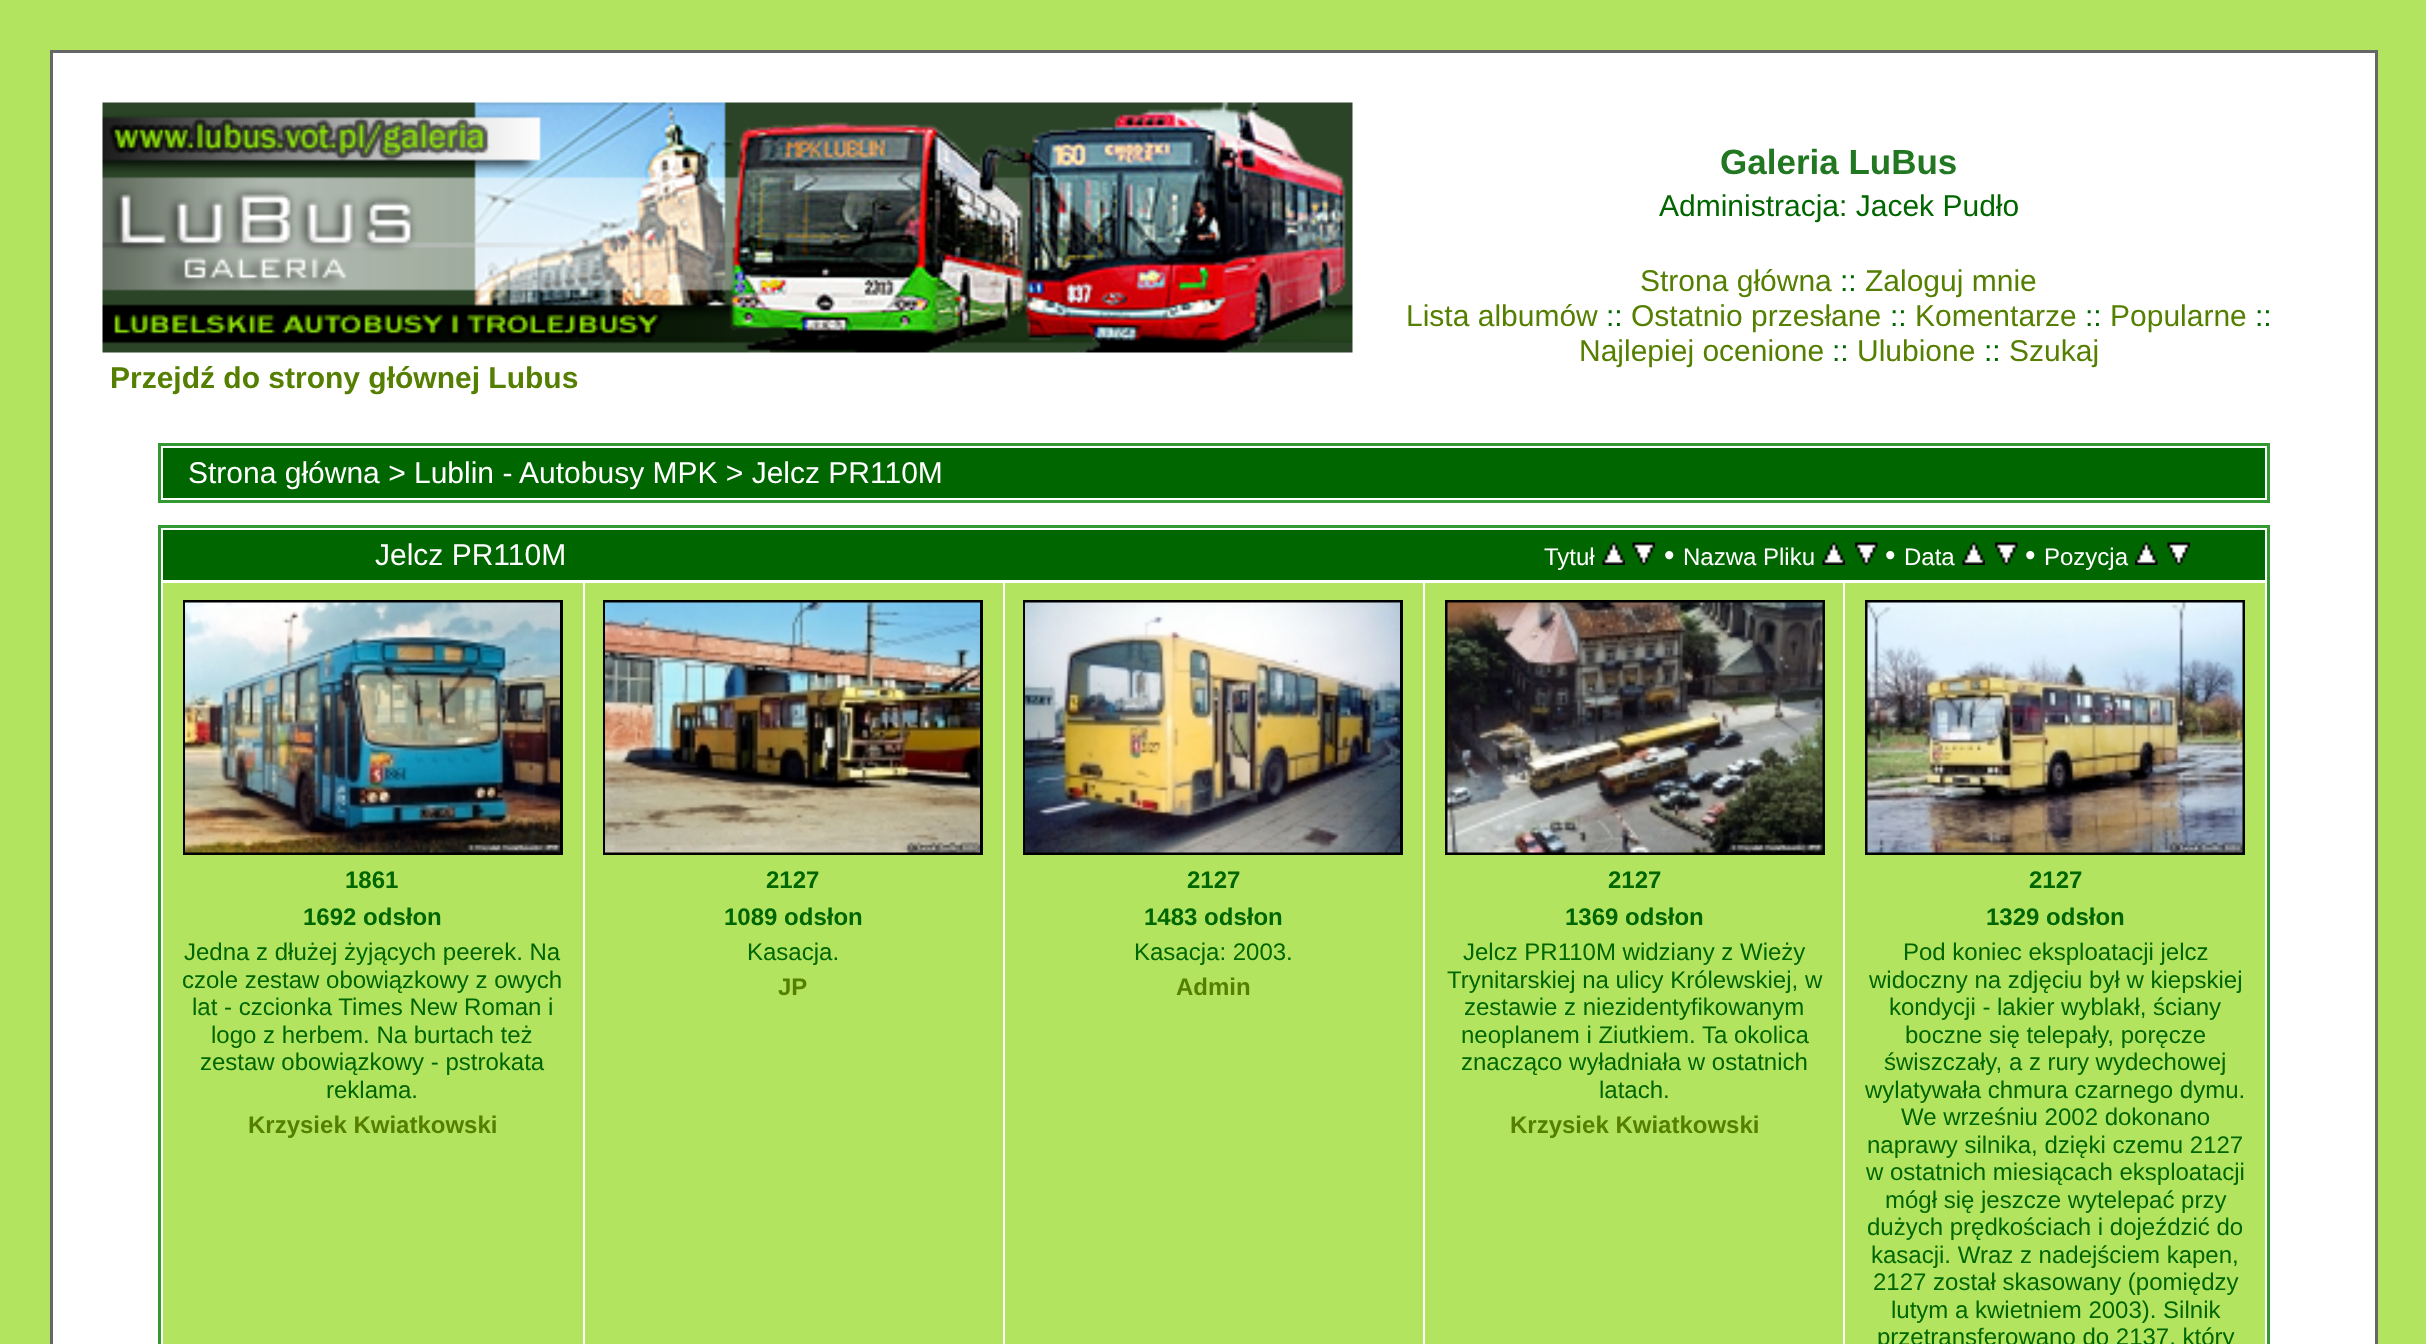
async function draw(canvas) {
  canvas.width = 2426
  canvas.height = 1344
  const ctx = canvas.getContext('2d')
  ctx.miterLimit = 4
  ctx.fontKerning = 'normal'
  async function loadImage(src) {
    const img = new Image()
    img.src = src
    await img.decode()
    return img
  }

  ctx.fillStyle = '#b3e45f'
  ctx.fillRect(0, 0, 2426, 1344)
  ctx.fillStyle = '#fff'
  ctx.beginPath()
  ctx.rect(51.5, 51.5, 2325, 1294)
  ctx.fill()
  ctx.strokeStyle = '#666'
  ctx.lineWidth = 3
  ctx.stroke()
  ctx.font = 'bold 35px Liberation Sans'
  ctx.fillStyle = '#272'
  ctx.fillText('Galeria LuBus', 1720, 174)
  ctx.font = '30px Liberation Sans'
  ctx.fillStyle = '#060'
  ctx.fillText('Administracja: Jacek Pudło', 1659, 216)
  ctx.fillStyle = '#557f01'
  ctx.fillText('Strona główna', 1640, 291)
  ctx.fillStyle = '#060'
  ctx.fillText('::', 1840, 291)
  ctx.fillStyle = '#557f01'
  ctx.fillText('Zaloguj mnie', 1865, 291)
  ctx.fillText('Lista albumów', 1406, 326)
  ctx.fillStyle = '#060'
  ctx.fillText('::', 1606, 326)
  ctx.fillStyle = '#557f01'
  ctx.fillText('Ostatnio przesłane', 1631, 326)
  ctx.fillStyle = '#060'
  ctx.fillText('::', 1890, 326)
  ctx.fillStyle = '#557f01'
  ctx.fillText('Komentarze', 1915, 326)
  ctx.fillStyle = '#060'
  ctx.fillText('::', 2085, 326)
  ctx.fillStyle = '#557f01'
  ctx.fillText('Popularne', 2110, 326)
  ctx.fillStyle = '#060'
  ctx.fillText('::', 2255, 326)
  ctx.fillStyle = '#557f01'
  ctx.fillText('Najlepiej ocenione', 1579, 361)
  ctx.fillStyle = '#060'
  ctx.fillText('::', 1832, 361)
  ctx.fillStyle = '#557f01'
  ctx.fillText('Ulubione', 1857, 361)
  ctx.fillStyle = '#060'
  ctx.fillText('::', 1984, 361)
  ctx.fillStyle = '#557f01'
  ctx.fillText('Szukaj', 2009, 361)
  ctx.drawImage(await loadImage('image0.png'), 102, 102, 1251, 251)
  ctx.font = 'bold 30px Liberation Sans'
  ctx.fillText('Przejdź do strony głównej Lubus', 110, 388)
  ctx.strokeStyle = '#393'
  ctx.strokeRect(159.5, 444.5, 2109, 57)
  ctx.fillStyle = '#060'
  ctx.fillRect(163, 448, 2102, 50)
  ctx.font = '30px Liberation Sans'
  ctx.fillStyle = '#fff'
  ctx.fillText('Strona główna > Lublin - Autobusy MPK > Jelcz PR110M', 188, 483)
  ctx.strokeRect(159.5, 526.5, 2109, 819)
  ctx.fillStyle = '#060'
  ctx.fillRect(163, 530, 2102, 50)
  ctx.fillStyle = '#fff'
  ctx.fillText('Jelcz PR110M', 375, 565)
  ctx.font = '24px Liberation Sans'
  ctx.fillText('Tytuł', 1544, 565)
  ctx.drawImage(await loadImage('image1.png'), 1602, 542, 23, 23)
  ctx.drawImage(await loadImage('image2.png'), 1632, 542, 23, 23)
  ctx.font = '30px Liberation Sans'
  ctx.fillText('•', 1664, 565)
  ctx.font = '24px Liberation Sans'
  ctx.fillText('Nazwa Pliku', 1683, 565)
  ctx.drawImage(await loadImage('image3.png'), 1822, 542, 23, 23)
  ctx.drawImage(await loadImage('image4.png'), 1855, 542, 23, 23)
  ctx.font = '30px Liberation Sans'
  ctx.fillText('•', 1885, 565)
  ctx.font = '24px Liberation Sans'
  ctx.fillText('Data', 1904, 565)
  ctx.drawImage(await loadImage('image1.png'), 1962, 542, 23, 23)
  ctx.drawImage(await loadImage('image4.png'), 1995, 542, 23, 23)
  ctx.font = '30px Liberation Sans'
  ctx.fillText('•', 2025, 565)
  ctx.font = '24px Liberation Sans'
  ctx.fillText('Pozycja', 2044, 565)
  ctx.drawImage(await loadImage('image5.png'), 2135, 542, 23, 23)
  ctx.drawImage(await loadImage('image6.png'), 2167, 542, 23, 23)
  ctx.fillStyle = '#b3e45f'
  ctx.fillRect(163, 583, 420, 761)
  ctx.strokeStyle = '#000'
  ctx.strokeRect(184.5, 601.5, 377, 252)
  ctx.drawImage(await loadImage('image7.png'), 185, 602, 375, 251)
  ctx.font = 'bold 24px Liberation Sans'
  ctx.fillStyle = '#060'
  ctx.fillText('1861', 345, 888)
  ctx.fillText('1692 odsłon', 303, 925)
  ctx.font = '24px Liberation Sans'
  ctx.fillText('Jedna z dłużej żyjących peerek. Na', 184, 960)
  ctx.fillText('czole zestaw obowiązkowy z owych', 182, 988)
  ctx.fillText('lat - czcionka Times New Roman i', 192, 1015)
  ctx.fillText('logo z herbem. Na burtach też', 211, 1043)
  ctx.fillText('zestaw obowiązkowy - pstrokata', 200, 1070)
  ctx.fillText('reklama.', 326, 1098)
  ctx.font = 'bold 24px Liberation Sans'
  ctx.fillStyle = '#557f01'
  ctx.fillText('Krzysiek Kwiatkowski', 248, 1133)
  ctx.fillStyle = '#b3e45f'
  ctx.fillRect(585, 583, 418, 761)
  ctx.strokeRect(604.5, 601.5, 377, 252)
  ctx.drawImage(await loadImage('image8.png'), 605, 602, 375, 251)
  ctx.fillStyle = '#060'
  ctx.fillText('2127', 766, 888)
  ctx.fillText('1089 odsłon', 724, 925)
  ctx.font = '24px Liberation Sans'
  ctx.fillText('Kasacja.', 747, 960)
  ctx.font = 'bold 24px Liberation Sans'
  ctx.fillStyle = '#557f01'
  ctx.fillText('JP', 778, 995)
  ctx.fillStyle = '#b3e45f'
  ctx.fillRect(1005, 583, 418, 761)
  ctx.strokeRect(1024.5, 601.5, 377, 252)
  ctx.drawImage(await loadImage('image9.png'), 1025, 602, 375, 251)
  ctx.fillStyle = '#060'
  ctx.fillText('2127', 1187, 888)
  ctx.fillText('1483 odsłon', 1144, 925)
  ctx.font = '24px Liberation Sans'
  ctx.fillText('Kasacja: 2003.', 1134, 960)
  ctx.font = 'bold 24px Liberation Sans'
  ctx.fillStyle = '#557f01'
  ctx.fillText('Admin', 1176, 995)
  ctx.fillStyle = '#b3e45f'
  ctx.fillRect(1425, 583, 418, 761)
  ctx.strokeRect(1446.5, 601.5, 377, 252)
  ctx.drawImage(await loadImage('image10.png'), 1447, 602, 376, 251)
  ctx.fillStyle = '#060'
  ctx.fillText('2127', 1608, 888)
  ctx.fillText('1369 odsłon', 1565, 925)
  ctx.font = '24px Liberation Sans'
  ctx.fillText('Jelcz PR110M widziany z Wieży', 1463, 960)
  ctx.fillText('Trynitarskiej na ulicy Królewskiej, w', 1447, 988)
  ctx.fillText('zestawie z niezidentyfikowanym', 1464, 1015)
  ctx.fillText('neoplanem i Ziutkiem. Ta okolica', 1461, 1043)
  ctx.fillText('znacząco wyładniała w ostatnich', 1461, 1070)
  ctx.fillText('latach.', 1599, 1098)
  ctx.font = 'bold 24px Liberation Sans'
  ctx.fillStyle = '#557f01'
  ctx.fillText('Krzysiek Kwiatkowski', 1510, 1133)
  ctx.fillStyle = '#b3e45f'
  ctx.fillRect(1845, 583, 420, 761)
  ctx.strokeRect(1866.5, 601.5, 377, 252)
  ctx.drawImage(await loadImage('image11.png'), 1867, 602, 376, 251)
  ctx.fillStyle = '#060'
  ctx.fillText('2127', 2029, 888)
  ctx.fillText('1329 odsłon', 1986, 925)
  ctx.font = '24px Liberation Sans'
  ctx.fillText('Pod koniec eksploatacji jelcz', 1903, 960)
  ctx.fillText('widoczny na zdjęciu był w kiepskiej', 1869, 988)
  ctx.fillText('kondycji - lakier wyblakł, ściany', 1889, 1015)
  ctx.fillText('boczne się telepały, poręcze', 1905, 1043)
  ctx.fillText('świszczały, a z rury wydechowej', 1884, 1070)
  ctx.fillText('wylatywała chmura czarnego dymu.', 1865, 1098)
  ctx.fillText('We wrześniu 2002 dokonano', 1901, 1125)
  ctx.fillText('naprawy silnika, dzięki czemu 2127', 1867, 1153)
  ctx.fillText('w ostatnich miesiącach eksploatacji', 1866, 1180)
  ctx.fillText('mógł się jeszcze wytelepać przy', 1885, 1208)
  ctx.fillText('dużych prędkościach i dojeździć do', 1867, 1235)
  ctx.fillText('kasacji. Wraz z nadejściem kapen,', 1871, 1263)
  ctx.fillText('2127 został skasowany (pomiędzy', 1873, 1290)
  ctx.fillText('lutym a kwietniem 2003). Silnik', 1891, 1318)
  ctx.fillText('przetransferowano do 2137, który', 1877, 1345)
}

draw(document.querySelector('canvas'))
